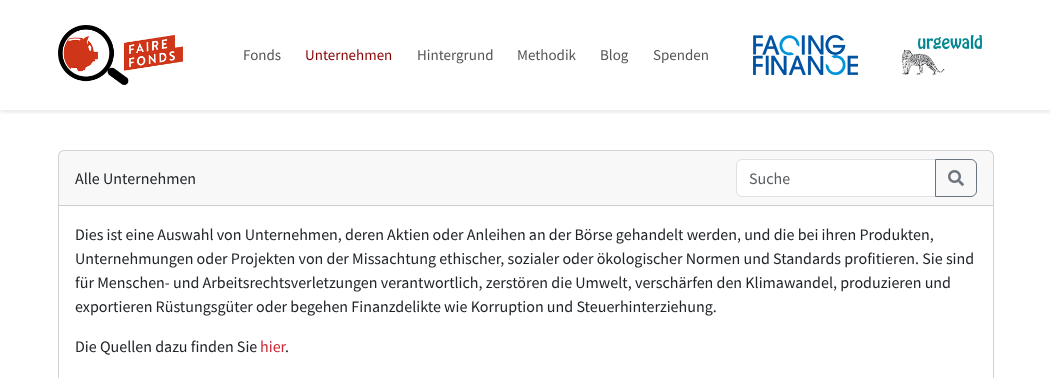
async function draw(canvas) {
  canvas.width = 1051
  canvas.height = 378
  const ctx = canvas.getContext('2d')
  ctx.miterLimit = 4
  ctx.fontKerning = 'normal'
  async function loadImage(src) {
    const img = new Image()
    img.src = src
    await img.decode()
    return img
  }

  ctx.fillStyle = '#fff'
  ctx.fillRect(0, 0, 1051, 378)
  ctx.save()
  ctx.beginPath()
  ctx.rect(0, 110, 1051, 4)
  ctx.clip()
  ctx.fillStyle = '#0000001a'
  ctx.filter = 'blur(2.5px)'
  ctx.beginPath()
  ctx.rect(0, 2, 1051, 110)
  ctx.fill()
  ctx.filter = 'none'
  ctx.restore()
  ctx.drawImage(await loadImage('image0.png'), 58, 25, 125, 60)
  ctx.font = '15px Source Sans Pro'
  ctx.fillStyle = '#555'
  ctx.fillText('Fonds', 243, 60)
  ctx.fillStyle = '#870000'
  ctx.fillText('Unternehmen', 305, 60)
  ctx.fillStyle = '#555'
  ctx.fillText('Hintergrund', 417, 60)
  ctx.fillText('Methodik', 517, 60)
  ctx.fillText('Blog', 600, 60)
  ctx.fillText('Spenden', 653, 60)
  ctx.drawImage(await loadImage('image1.png'), 753, 35, 105, 40)
  ctx.drawImage(await loadImage('image2.png'), 902, 35, 80, 40)
  ctx.beginPath()
  ctx.roundRect(58.5, 150.5, 935, 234, 5.5)
  ctx.strokeStyle = '#d2d2d2'
  ctx.stroke()
  ctx.fillStyle = '#21252908'
  ctx.fillRect(59, 151, 934, 54)
  ctx.fillStyle = '#cdcdcd'
  ctx.fillRect(59, 205, 934, 1)
  ctx.font = '16px Source Sans Pro'
  ctx.fillStyle = '#212529'
  ctx.fillText('Alle Unternehmen', 75, 184)
  ctx.fillStyle = '#fff'
  ctx.beginPath()
  ctx.roundRect(736.5, 159.5, 199, 37, [5.5, 0, 0, 5.5])
  ctx.fill()
  ctx.strokeStyle = '#dee2e6'
  ctx.stroke()
  ctx.fillStyle = '#595c5f'
  ctx.fillText('Suche', 749, 184)
  ctx.beginPath()
  ctx.roundRect(935.5, 159.5, 41, 37, [0, 5.5, 5.5, 0])
  ctx.strokeStyle = '#6c757d'
  ctx.stroke()
  ctx.drawImage(await loadImage('image3.png'), 948, 170, 16, 16)
  ctx.fillStyle = '#212529'
  ctx.fillText('Dies ist eine Auswahl von Unternehmen, deren Aktien oder Anleihen an der Börse gehandelt werden, und die bei ihren Produkten,', 75, 240)
  ctx.fillText('Unternehmungen oder Projekten von der Missachtung ethischer, sozialer oder ökologischer Normen und Standards profitieren. Sie sind', 75, 264)
  ctx.fillText('für Menschen- und Arbeitsrechtsverletzungen verantwortlich, zerstören die Umwelt, verschärfen den Klimawandel, produzieren und', 75, 288)
  ctx.fillText('exportieren Rüstungsgüter oder begehen Finanzdelikte wie Korruption und Steuerhinterziehung.', 75, 312)
  ctx.fillText('Die Quellen dazu finden Sie', 75, 352)
  ctx.fillStyle = '#cd2736'
  ctx.fillText('hier', 260, 352)
  ctx.fillStyle = '#212529'
  ctx.fillText('.', 285, 352)
}

draw(document.querySelector('canvas'))
